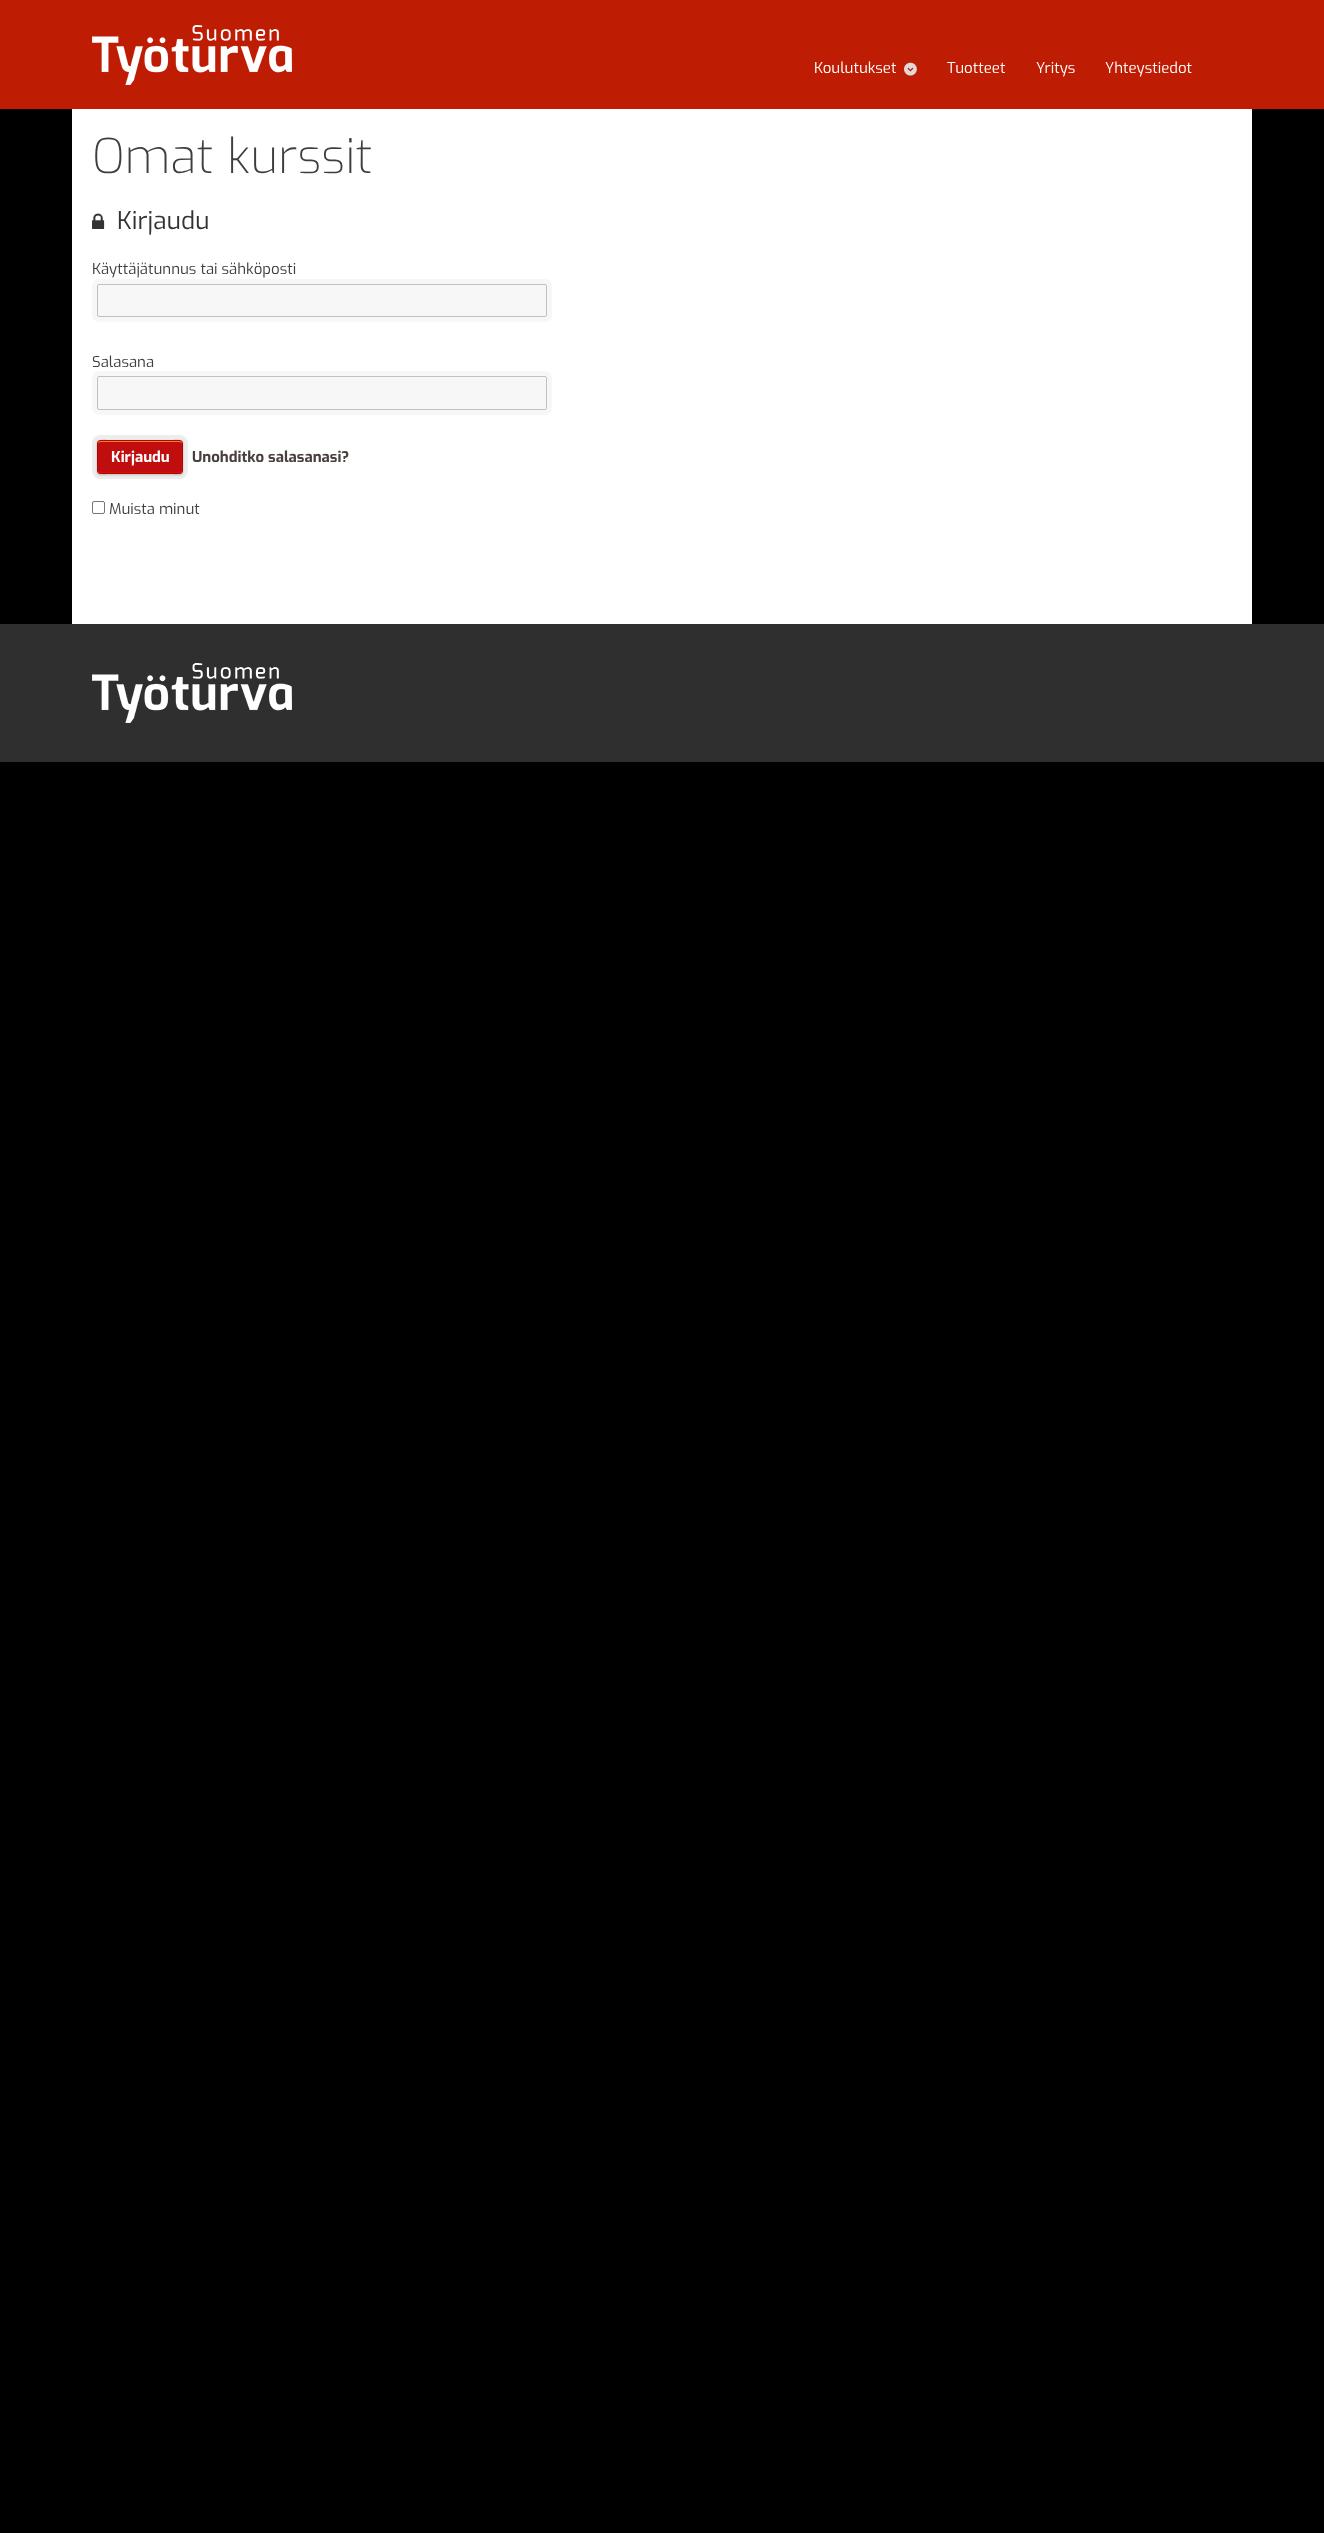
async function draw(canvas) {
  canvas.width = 1324
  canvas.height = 2533
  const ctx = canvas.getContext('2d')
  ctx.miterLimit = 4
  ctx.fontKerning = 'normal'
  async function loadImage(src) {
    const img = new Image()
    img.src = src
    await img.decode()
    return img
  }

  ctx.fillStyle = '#000'
  ctx.fillRect(0, 0, 1324, 2533)
  ctx.fillStyle = '#be1c03'
  ctx.fillRect(0, 0, 1324, 109)
  ctx.drawImage(await loadImage('image0.png'), 92, 25, 200, 60)
  ctx.font = '15px Exo'
  ctx.fillStyle = '#fff'
  ctx.fillText('Koulutukset', 814, 73)
  ctx.drawImage(await loadImage('image1.png'), 904, 62, 13, 14)
  ctx.fillText('Tuotteet', 947, 73)
  ctx.fillText('Yritys', 1036, 73)
  ctx.fillText('Yhteystiedot', 1105, 73)
  ctx.fillRect(72, 109, 1180, 515)
  ctx.font = '200 48px Exo'
  ctx.fillStyle = '#3e3e3e'
  ctx.fillText('Omat kurssit', 92, 173)
  ctx.drawImage(await loadImage('image2.png'), 92, 213, 13, 16)
  ctx.font = '24.5px Exo'
  ctx.fillStyle = '#363230'
  ctx.fillText('Kirjaudu', 117, 229)
  ctx.font = '15px Exo'
  ctx.fillStyle = '#3e3e3e'
  ctx.fillText('Käyttäjätunnus tai sähköposti', 92, 274)
  ctx.beginPath()
  ctx.roundRect(94.5, 281.5, 455, 38, 4.5)
  ctx.strokeStyle = '#f7f7f7'
  ctx.lineWidth = 5
  ctx.stroke()
  ctx.fillStyle = '#f7f7f7'
  ctx.beginPath()
  ctx.roundRect(97.5, 284.5, 449, 32, 1.5)
  ctx.fill()
  ctx.strokeStyle = '#c4c0bf'
  ctx.lineWidth = 1
  ctx.stroke()
  ctx.fillStyle = '#3e3e3e'
  ctx.fillText('Salasana', 92, 367)
  ctx.beginPath()
  ctx.roundRect(94.5, 373.5, 455, 39, 4.5)
  ctx.strokeStyle = '#f7f7f7'
  ctx.lineWidth = 5
  ctx.stroke()
  ctx.fillStyle = '#f7f7f7'
  ctx.beginPath()
  ctx.roundRect(97.5, 376.5, 449, 33, 1.5)
  ctx.fill()
  ctx.strokeStyle = '#c4c0bf'
  ctx.lineWidth = 1
  ctx.stroke()
  ctx.fillStyle = '#00000033'
  ctx.filter = 'blur(1px)'
  ctx.beginPath()
  ctx.roundRect(97, 441, 86, 34, 3)
  ctx.fill()
  ctx.filter = 'none'
  ctx.beginPath()
  ctx.roundRect(94.5, 437.5, 91, 39, 5.5)
  ctx.strokeStyle = '#00000012'
  ctx.lineWidth = 5
  ctx.stroke()
  ctx.fillStyle = '#c00d0e'
  ctx.beginPath()
  ctx.roundRect(98, 441, 84, 32, 2)
  ctx.fill()
  ctx.fillStyle = '#cc1500'
  ctx.beginPath()
  ctx.moveTo(98, 470)
  ctx.bezierCurveTo(98, 477, 111, 473, 113, 473)
  ctx.lineTo(167, 473)
  ctx.bezierCurveTo(169, 473, 182, 477, 182, 470)
  ctx.bezierCurveTo(182, 471, 181, 472, 180, 472)
  ctx.lineTo(100, 472)
  ctx.bezierCurveTo(99, 472, 98, 471, 98, 470)
  ctx.closePath()
  ctx.fill()
  ctx.fillStyle = '#ff7b33'
  ctx.beginPath()
  ctx.moveTo(100, 442)
  ctx.lineTo(180, 442)
  ctx.bezierCurveTo(181, 442, 182, 443, 182, 444)
  ctx.bezierCurveTo(182, 437, 169, 441, 167, 441)
  ctx.lineTo(113, 441)
  ctx.bezierCurveTo(111, 441, 98, 437, 98, 444)
  ctx.bezierCurveTo(98, 443, 99, 442, 100, 442)
  ctx.closePath()
  ctx.fill()
  ctx.beginPath()
  ctx.roundRect(97.5, 440.5, 85, 33, 2.5)
  ctx.strokeStyle = '#bb0400'
  ctx.lineWidth = 1
  ctx.stroke()
  ctx.font = 'bold 15px Exo'
  ctx.fillStyle = '#fff'
  ctx.fillText('Kirjaudu', 111, 462)
  ctx.fillStyle = '#4a413e'
  ctx.fillText('Unohditko salasanasi?', 192, 462)
  ctx.beginPath()
  ctx.roundRect(92.5, 501.5, 12, 12, 1.5)
  ctx.strokeStyle = '#767676'
  ctx.stroke()
  ctx.font = '15px Exo'
  ctx.fillStyle = '#3e3e3e'
  ctx.fillText('Muista minut', 109, 514)
  ctx.fillStyle = '#2f2f2f'
  ctx.fillRect(0, 624, 1324, 138)
  ctx.drawImage(await loadImage('image3.png'), 92, 663, 200, 60)
}

draw(document.querySelector('canvas'))
